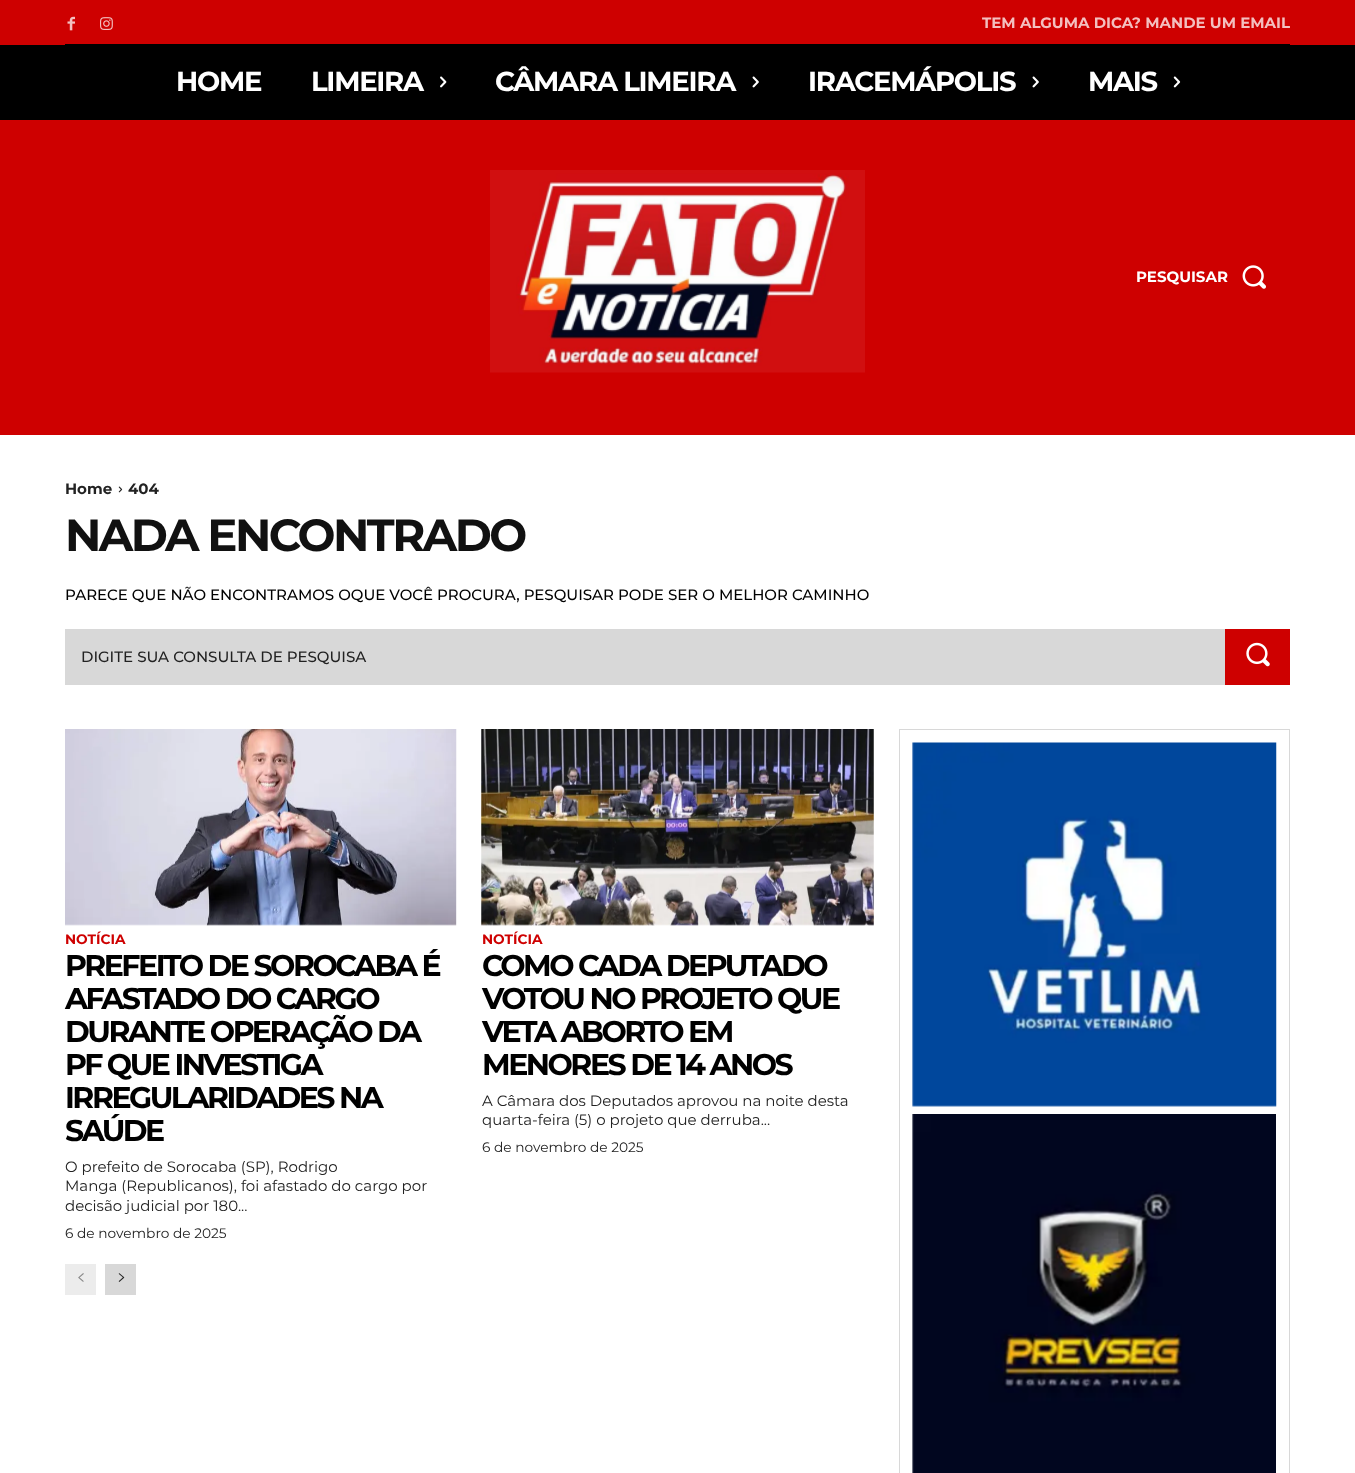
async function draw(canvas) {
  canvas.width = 1355
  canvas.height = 1473
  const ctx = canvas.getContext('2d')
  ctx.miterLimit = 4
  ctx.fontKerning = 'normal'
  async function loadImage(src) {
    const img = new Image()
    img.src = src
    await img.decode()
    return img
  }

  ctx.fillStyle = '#fff'
  ctx.fillRect(0, 0, 1355, 1473)
  ctx.fillStyle = '#ce0000'
  ctx.fillRect(0, 0, 1355, 435)
  ctx.fillStyle = '#000'
  ctx.fillRect(65, 44, 1225, 1)
  ctx.drawImage(await loadImage('image0.png'), 67, 16, 8, 15)
  ctx.drawImage(await loadImage('image1.png'), 100, 17, 13, 13)
  ctx.font = 'bold 15px Montserrat'
  ctx.fillStyle = '#f3bfbf'
  ctx.fillText('TEM ALGUMA DICA? MANDE UM EMAIL', 982, 28)
  ctx.fillStyle = '#000'
  ctx.fillRect(0, 45, 1355, 75)
  ctx.letterSpacing = '-1.25px'
  ctx.font = 'bold 27.5px Montserrat'
  ctx.fillStyle = '#fff'
  ctx.fillText('HOME', 176, 91)
  ctx.fillText('LIMEIRA', 311, 91)
  ctx.drawImage(await loadImage('image2.png'), 440, 76, 7, 12)
  ctx.fillText('CÂMARA LIMEIRA', 495, 91)
  ctx.drawImage(await loadImage('image3.png'), 752, 76, 7, 12)
  ctx.fillText('IRACEMÁPOLIS', 808, 91)
  ctx.drawImage(await loadImage('image3.png'), 1032, 76, 7, 12)
  ctx.fillText('MAIS', 1088, 91)
  ctx.drawImage(await loadImage('image4.png'), 1173, 76, 8, 12)
  ctx.drawImage(await loadImage('image5.png'), 490, 170, 375, 203)
  ctx.letterSpacing = '0px'
  ctx.font = 'bold 15px Montserrat'
  ctx.fillText('PESQUISAR', 1136, 282)
  ctx.drawImage(await loadImage('image6.png'), 1242, 265, 24, 24)
  ctx.fillStyle = '#222'
  ctx.fillText('Home', 65, 494)
  ctx.drawImage(await loadImage('image7.png'), 118, 486, 5, 7)
  ctx.fillText('404', 128, 494)
  ctx.letterSpacing = '-2.5px'
  ctx.font = 'bold 45px Montserrat'
  ctx.fillStyle = '#111'
  ctx.fillText('NADA ENCONTRADO', 65, 551)
  ctx.letterSpacing = '0px'
  ctx.font = '500 15px Montserrat'
  ctx.fillStyle = '#000'
  ctx.fillText('PARECE QUE NÃO ENCONTRAMOS OQUE VOCÊ PROCURA, PESQUISAR PODE SER O MELHOR CAMINHO', 65, 600)
  ctx.fillStyle = '#d8d8d8'
  ctx.fillRect(65, 629, 1160, 56)
  ctx.fillStyle = '#222'
  ctx.fillText('DIGITE SUA CONSULTA DE PESQUISA', 81, 662)
  ctx.fillStyle = '#ce0000'
  ctx.fillRect(1225, 629, 65, 56)
  ctx.drawImage(await loadImage('image8.png'), 1246, 642, 24, 25)
  ctx.drawImage(await loadImage('image9.png'), 65, 729, 392, 197)
  ctx.font = 'bold 13.75px Montserrat'
  ctx.fillText('NOTÍCIA', 65, 944)
  ctx.letterSpacing = '-2.5px'
  ctx.font = 'bold 30px Montserrat'
  ctx.fillStyle = '#000'
  ctx.fillText('PREFEITO DE SOROCABA É', 65, 976)
  ctx.fillText('AFASTADO DO CARGO', 65, 1009)
  ctx.fillText('DURANTE OPERAÇÃO DA', 65, 1042)
  ctx.fillText('PF QUE INVESTIGA', 65, 1075)
  ctx.fillText('IRREGULARIDADES NA', 65, 1108)
  ctx.fillText('SAÚDE', 65, 1141)
  ctx.letterSpacing = '0px'
  ctx.font = '15px Montserrat'
  ctx.fillStyle = '#222'
  ctx.fillText('O prefeito de Sorocaba (SP), Rodrigo', 65, 1172)
  ctx.fillText('Manga (Republicanos), foi afastado do cargo por', 65, 1191)
  ctx.fillText('decisão judicial por 180...', 65, 1211)
  ctx.font = '13.75px Montserrat'
  ctx.fillText('6 de novembro de 2025', 65, 1238)
  ctx.drawImage(await loadImage('image10.png'), 481, 729, 393, 197)
  ctx.font = 'bold 13.75px Montserrat'
  ctx.fillStyle = '#ce0000'
  ctx.fillText('NOTÍCIA', 482, 944)
  ctx.letterSpacing = '-2.5px'
  ctx.font = 'bold 30px Montserrat'
  ctx.fillStyle = '#000'
  ctx.fillText('COMO CADA DEPUTADO', 482, 976)
  ctx.fillText('VOTOU NO PROJETO QUE', 482, 1009)
  ctx.fillText('VETA ABORTO EM', 482, 1042)
  ctx.fillText('MENORES DE 14 ANOS', 482, 1075)
  ctx.letterSpacing = '0px'
  ctx.font = '15px Montserrat'
  ctx.fillStyle = '#222'
  ctx.fillText('A Câmara dos Deputados aprovou na noite desta', 482, 1106)
  ctx.fillText('quarta-feira (5) o projeto que derruba...', 482, 1125)
  ctx.font = '13.75px Montserrat'
  ctx.fillText('6 de novembro de 2025', 482, 1152)
  ctx.fillStyle = '#ececec'
  ctx.fillRect(65, 1264, 31, 31)
  ctx.drawImage(await loadImage('image11.png'), 78, 1273, 6, 9)
  ctx.fillStyle = '#d8d8d8'
  ctx.fillRect(105, 1264, 31, 31)
  ctx.drawImage(await loadImage('image12.png'), 118, 1273, 7, 9)
  ctx.strokeStyle = '#d8d8d8'
  ctx.strokeRect(899.5, 729.5, 390, 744)
  ctx.drawImage(await loadImage('image13.png'), 912, 742, 365, 365)
  ctx.drawImage(await loadImage('image14.png'), 912, 1114, 364, 359)
}

draw(document.querySelector('canvas'))
